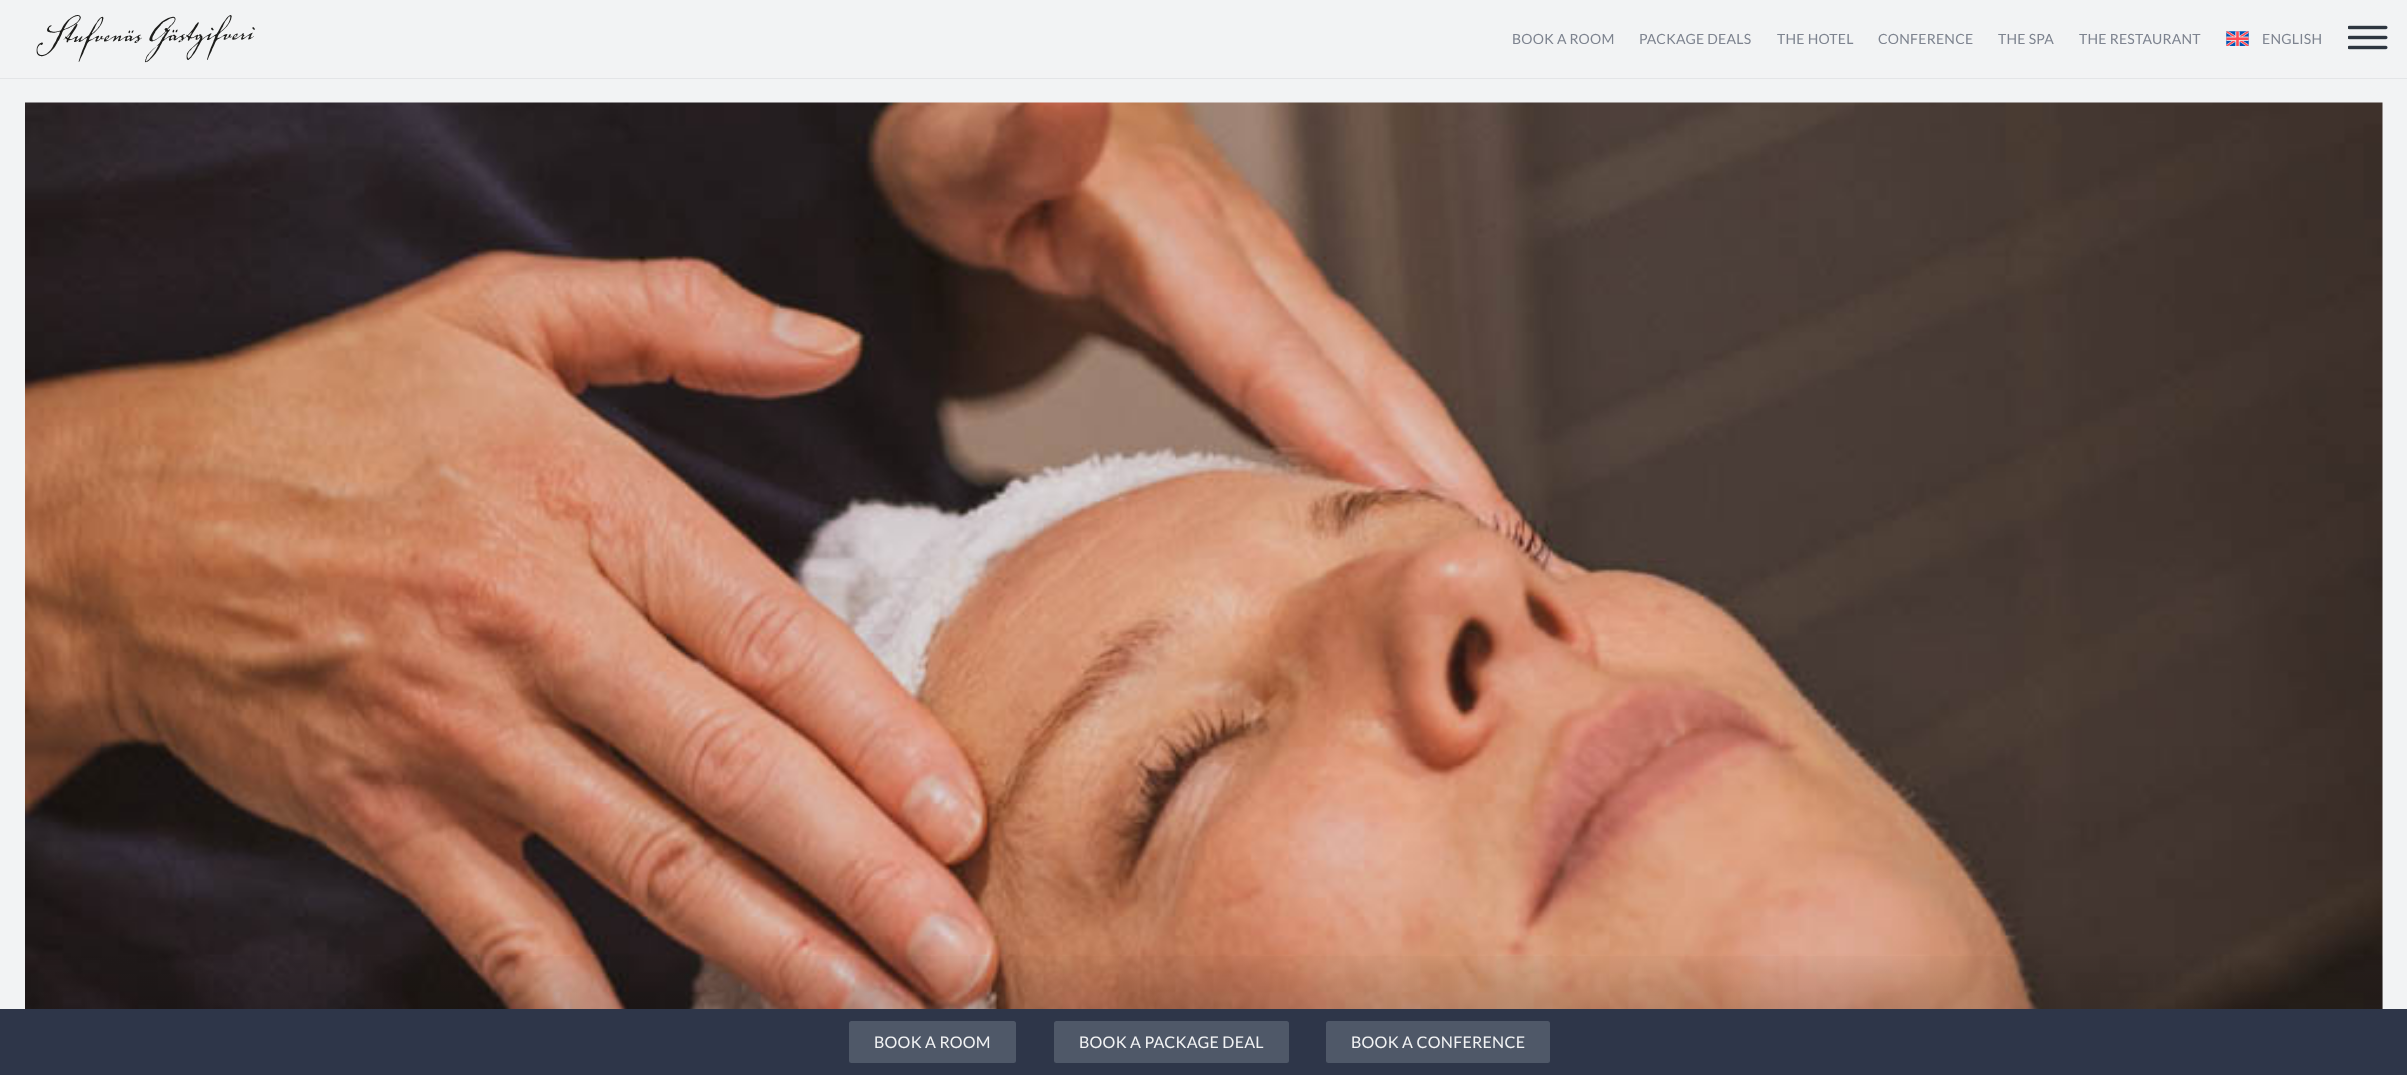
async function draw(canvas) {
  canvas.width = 2407
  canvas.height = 1075
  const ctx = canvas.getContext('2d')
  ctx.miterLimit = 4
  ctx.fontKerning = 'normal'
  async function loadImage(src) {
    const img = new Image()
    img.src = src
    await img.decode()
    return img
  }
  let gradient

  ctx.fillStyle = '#f2f3f4'
  ctx.fillRect(0, 0, 2407, 1075)
  ctx.fillStyle = '#e3e5e7'
  ctx.beginPath()
  ctx.moveTo(0, 78)
  ctx.lineTo(0, 79)
  ctx.lineTo(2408, 79)
  ctx.lineTo(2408, 1)
  ctx.lineTo(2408, 78)
  ctx.closePath()
  ctx.fill()
  ctx.drawImage(await loadImage('image0.png'), 36, 15, 219, 48)
  ctx.letterSpacing = '0.25px'
  ctx.font = '14px Lato'
  ctx.fillStyle = '#7d838f'
  ctx.fillText('BOOK A ROOM', 1512, 44)
  ctx.fillText('PACKAGE DEALS', 1639, 44)
  ctx.fillText('THE HOTEL', 1777, 44)
  ctx.fillText('CONFERENCE', 1878, 44)
  ctx.fillText('THE SPA', 1998, 44)
  ctx.fillText('THE RESTAURANT', 2079, 44)
  ctx.drawImage(await loadImage('image1.png'), 2226, 31, 23, 15)
  ctx.fillText('ENGLISH', 2262, 44)
  ctx.drawImage(await loadImage('image2.png'), 2348, 25, 40, 25)
  ctx.drawImage(await loadImage('image3.png'), 25, 102, 2358, 907)
  gradient = ctx.createLinearGradient(1204, 102, 1204, 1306)
  gradient.addColorStop(0.7, '#00000000')
  gradient.addColorStop(1, '#000000b3')
  ctx.fillStyle = gradient
  ctx.fillRect(25, 956, 2358, 53)
  ctx.fillStyle = '#2e3649'
  ctx.fillRect(0, 1009, 2407, 66)
  ctx.fillStyle = '#4f5868'
  ctx.beginPath()
  ctx.roundRect(849, 1021, 167, 42, 2.5)
  ctx.fill()
  ctx.font = '16px Lato'
  ctx.fillStyle = '#f2f3f4'
  ctx.fillText('BOOK A ROOM', 874, 1048)
  ctx.fillStyle = '#4f5868'
  ctx.beginPath()
  ctx.roundRect(1054, 1021, 235, 42, 2.5)
  ctx.fill()
  ctx.fillStyle = '#f2f3f4'
  ctx.fillText('BOOK A PACKAGE DEAL', 1079, 1048)
  ctx.fillStyle = '#4f5868'
  ctx.beginPath()
  ctx.roundRect(1326, 1021, 224, 42, 2.5)
  ctx.fill()
  ctx.fillStyle = '#f2f3f4'
  ctx.fillText('BOOK A CONFERENCE', 1351, 1048)
}

draw(document.querySelector('canvas'))
